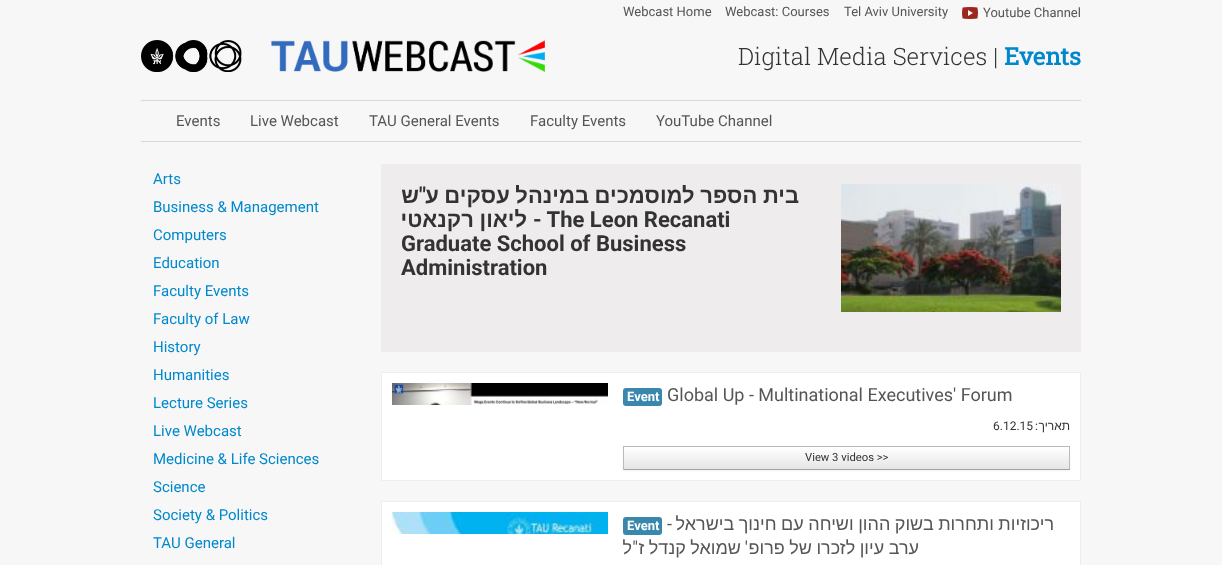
async function draw(canvas) {
  canvas.width = 1222
  canvas.height = 565
  const ctx = canvas.getContext('2d')
  ctx.miterLimit = 4
  ctx.fontKerning = 'normal'
  async function loadImage(src) {
    const img = new Image()
    img.src = src
    await img.decode()
    return img
  }
  let gradient

  ctx.fillStyle = '#f7f7f7'
  ctx.fillRect(0, 0, 1222, 565)
  ctx.fillStyle = '#d8d8d8'
  ctx.fillRect(141, 100, 940, 1)
  ctx.fillRect(141, 141, 940, 1)
  ctx.font = '13px Roboto'
  ctx.fillStyle = '#555'
  ctx.fillText('Webcast Home', 623, 16)
  ctx.fillText('Webcast: Courses', 725, 16)
  ctx.fillText('Tel Aviv University', 844, 16)
  ctx.drawImage(await loadImage('image0.png'), 962, 7, 16, 12)
  ctx.fillText('Youtube Channel', 983, 17)
  ctx.font = '15px Roboto'
  ctx.fillText('Events', 176, 126)
  ctx.fillText('Live Webcast', 250, 126)
  ctx.fillText('TAU General Events', 369, 126)
  ctx.fillText('Faculty Events', 530, 126)
  ctx.fillText('YouTube Channel', 656, 126)
  ctx.drawImage(await loadImage('image1.png'), 141, 40, 101, 32)
  ctx.drawImage(await loadImage('image2.png'), 271, 40, 274, 32)
  ctx.font = '300 24px Roboto Slab'
  ctx.fillStyle = '#333'
  ctx.fillText('Digital Media Services |', 738, 65)
  ctx.font = 'bold 24px Roboto Slab'
  ctx.fillStyle = '#08c'
  ctx.fillText('Events', 1004, 65)
  ctx.font = '15px Roboto'
  ctx.fillText('Arts', 153, 184)
  ctx.fillText('Business & Management', 153, 212)
  ctx.fillText('Computers', 153, 240)
  ctx.fillText('Education', 153, 268)
  ctx.fillText('Faculty Events', 153, 296)
  ctx.fillText('Faculty of Law', 153, 324)
  ctx.fillText('History', 153, 352)
  ctx.fillText('Humanities', 153, 380)
  ctx.fillText('Lecture Series', 153, 408)
  ctx.fillText('Live Webcast', 153, 436)
  ctx.fillText('Medicine & Life Sciences', 153, 464)
  ctx.fillText('Science', 153, 492)
  ctx.fillText('Society & Politics', 153, 520)
  ctx.fillText('TAU General', 153, 548)
  ctx.fillStyle = '#eeeced'
  ctx.fillRect(381, 164, 700, 188)
  ctx.direction = 'rtl'
  ctx.font = 'bold 22px Liberation Sans'
  ctx.fillStyle = '#333'
  ctx.fillText('ש', 419, 203)
  ctx.font = 'bold 22px Roboto'
  ctx.fillText('"', 426, 203)
  ctx.wordSpacing = '-0.5px'
  ctx.font = 'bold 22px Liberation Sans'
  ctx.fillText('בית הספר למוסמכים במינהל עסקים ע', 799, 203)
  ctx.fillText('ליאון רקנאטי', 527, 227)
  ctx.wordSpacing = '0px'
  ctx.direction = 'ltr'
  ctx.font = 'bold 22px Roboto'
  ctx.fillText('- The Leon Recanati', 533, 227)
  ctx.fillText('Graduate School of Business', 401, 251)
  ctx.fillText('Administration', 401, 275)
  ctx.drawImage(await loadImage('image3.png'), 841, 184, 220, 128)
  ctx.fillStyle = '#fff'
  ctx.beginPath()
  ctx.rect(381.5, 372.5, 699, 108)
  ctx.fill()
  ctx.strokeStyle = '#eeeced'
  ctx.stroke()
  ctx.drawImage(await loadImage('image4.png'), 392, 383, 216, 22)
  ctx.fillStyle = '#3a87ad'
  ctx.beginPath()
  ctx.roundRect(623, 388, 39, 18, 3)
  ctx.fill()
  ctx.font = 'bold 13px Roboto'
  ctx.fillStyle = '#fff'
  ctx.fillText('Event', 627, 401)
  ctx.font = '18px Roboto'
  ctx.fillStyle = '#555'
  ctx.fillText('Global Up - Multinational Executives\' Forum', 667, 401)
  ctx.font = '12px Roboto'
  ctx.fillStyle = '#333'
  ctx.fillText('6.12.15', 993, 430)
  ctx.direction = 'rtl'
  ctx.fillText(':', 1038, 430)
  ctx.font = '12px Liberation Sans'
  ctx.fillText('תאריך', 1070, 430)
  ctx.fillStyle = '#0000000d'
  ctx.filter = 'blur(1px)'
  ctx.beginPath()
  ctx.rect(623, 447, 447, 24)
  ctx.fill()
  ctx.filter = 'none'
  gradient = ctx.createLinearGradient(847, 447, 847, 469)
  gradient.addColorStop(0, '#fff')
  gradient.addColorStop(1, '#e6e6e6')
  ctx.fillStyle = gradient
  ctx.fillRect(624, 447, 445, 22)
  ctx.fillStyle = '#bbb'
  ctx.fillRect(623, 446, 447, 1)
  ctx.fillRect(1069, 446, 1, 24)
  ctx.fillStyle = '#a2a2a2'
  ctx.fillRect(623, 469, 447, 1)
  ctx.fillStyle = '#bbb'
  ctx.fillRect(623, 446, 1, 24)
  ctx.direction = 'ltr'
  ctx.font = '11.25px Roboto'
  ctx.fillStyle = '#333'
  ctx.fillText('View 3 videos >>', 805, 461)
  ctx.fillStyle = '#fff'
  ctx.beginPath()
  ctx.rect(381.5, 501.5, 699, 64)
  ctx.fill()
  ctx.stroke()
  ctx.drawImage(await loadImage('image5.png'), 392, 512, 216, 22)
  ctx.fillStyle = '#3a87ad'
  ctx.beginPath()
  ctx.roundRect(623, 517, 39, 18, 3)
  ctx.fill()
  ctx.font = 'bold 13px Roboto'
  ctx.fillStyle = '#fff'
  ctx.fillText('Event', 627, 530)
  ctx.direction = 'rtl'
  ctx.font = '18px Roboto'
  ctx.fillStyle = '#555'
  ctx.fillText('-', 672, 530)
  ctx.wordSpacing = '-0.5px'
  ctx.font = '18px Liberation Sans'
  ctx.fillText('ריכוזיות ותחרות בשוק ההון ושיחה עם חינוך בישראל', 1054, 530)
  ctx.wordSpacing = '0px'
  ctx.fillText('ל', 632, 554)
  ctx.font = '18px Roboto'
  ctx.fillText('"', 638, 554)
  ctx.wordSpacing = '-0.5px'
  ctx.font = '18px Liberation Sans'
  ctx.fillText('שמואל קנדל ז', 741, 554)
  ctx.wordSpacing = '0px'
  ctx.font = '18px Roboto'
  ctx.fillText('\'', 748, 554)
  ctx.wordSpacing = '-0.5px'
  ctx.font = '18px Liberation Sans'
  ctx.fillText('ערב עיון לזכרו של פרופ', 919, 554)
}

draw(document.querySelector('canvas'))
